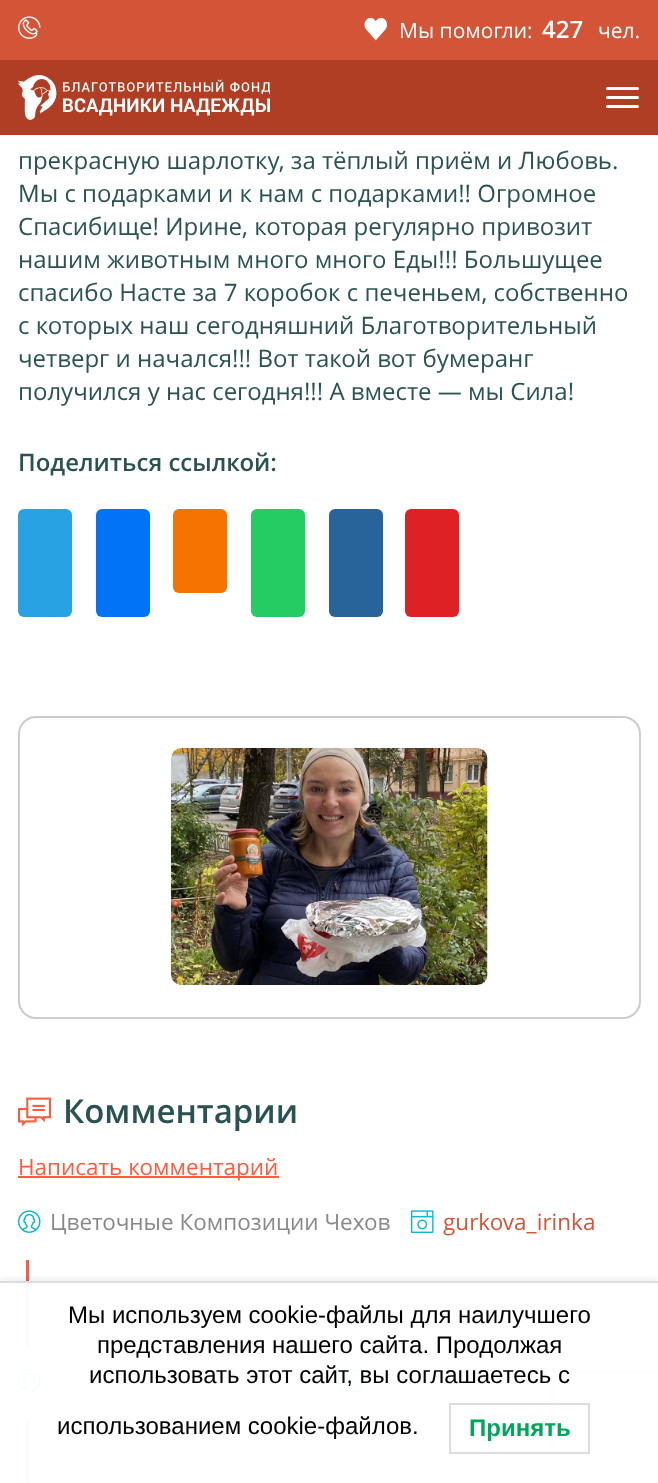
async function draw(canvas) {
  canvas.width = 658
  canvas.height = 1483
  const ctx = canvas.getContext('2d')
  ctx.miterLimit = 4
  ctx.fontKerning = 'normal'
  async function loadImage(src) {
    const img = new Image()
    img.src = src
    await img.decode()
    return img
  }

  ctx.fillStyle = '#fff'
  ctx.fillRect(0, 0, 658, 1483)
  ctx.fillStyle = '#d45437'
  ctx.fillRect(0, 0, 658, 60)
  ctx.drawImage(await loadImage('image0.png'), 18, 16, 23, 23)
  ctx.drawImage(await loadImage('image1.png'), 364, 17, 23, 24)
  ctx.font = '21px Open Sans'
  ctx.fillStyle = '#fff'
  ctx.fillText('Мы помогли:', 399, 38)
  ctx.font = '600 24px Open Sans'
  ctx.fillText('427', 542, 38)
  ctx.font = '21px Open Sans'
  ctx.fillText('чел.', 598, 38)
  ctx.fillStyle = '#af3e25'
  ctx.fillRect(0, 60, 658, 75)
  ctx.drawImage(await loadImage('image2.png'), 18, 75, 252, 45)
  ctx.fillStyle = '#fff'
  ctx.beginPath()
  ctx.roundRect(606, 87, 33, 3, 1.5)
  ctx.fill()
  ctx.beginPath()
  ctx.roundRect(606, 96, 33, 3, 1.5)
  ctx.fill()
  ctx.beginPath()
  ctx.roundRect(606, 105, 33, 3, 1.5)
  ctx.fill()
  ctx.font = '24px Open Sans'
  ctx.fillStyle = '#2b5252'
  ctx.fillText('прекрасную шарлотку, за тёплый приём и Любовь.', 18, 169)
  ctx.fillText('Мы с подарками и к нам с подарками!! Огромное', 18, 202)
  ctx.fillText('Спасибище! Ирине, которая регулярно привозит', 18, 235)
  ctx.fillText('нашим животным много много Еды!!! Большущее', 18, 268)
  ctx.fillText('спасибо Насте за 7 коробок с печеньем, собственно', 18, 301)
  ctx.fillText('с которых наш сегодняшний Благотворительный', 18, 334)
  ctx.fillText('четверг и начался!!! Вот такой вот бумеранг', 18, 367)
  ctx.fillText('получился у нас сегодня!!! А вместе — мы Сила!', 18, 400)
  ctx.font = '600 24px Open Sans'
  ctx.fillText('Поделиться ссылкой:', 18, 471)
  ctx.fillStyle = '#28a2e2'
  ctx.beginPath()
  ctx.roundRect(18, 509, 54, 108, 6)
  ctx.fill()
  ctx.fillStyle = '#0073f7'
  ctx.beginPath()
  ctx.roundRect(96, 509, 54, 108, 6)
  ctx.fill()
  ctx.fillStyle = '#f77301'
  ctx.beginPath()
  ctx.roundRect(173, 509, 54, 84, 6)
  ctx.fill()
  ctx.fillStyle = '#24cc63'
  ctx.beginPath()
  ctx.roundRect(251, 509, 54, 108, 6)
  ctx.fill()
  ctx.fillStyle = '#28639a'
  ctx.beginPath()
  ctx.roundRect(329, 509, 54, 108, 6)
  ctx.fill()
  ctx.fillStyle = '#de2125'
  ctx.beginPath()
  ctx.roundRect(405, 509, 54, 108, 6)
  ctx.fill()
  ctx.beginPath()
  ctx.roundRect(19, 717, 621, 301, 17)
  ctx.strokeStyle = '#ccc'
  ctx.lineWidth = 2
  ctx.stroke()
  ctx.drawImage(await loadImage('image3.png'), 171, 748, 317, 237)
  ctx.drawImage(await loadImage('image4.png'), 18, 1097, 33, 30)
  ctx.font = '600 33px Open Sans'
  ctx.fillStyle = '#2b5252'
  ctx.fillText('Комментарии', 63, 1123)
  ctx.fillStyle = '#fd5b3f'
  ctx.fillRect(18, 1176, 261, 2)
  ctx.font = '22.5px Open Sans'
  ctx.fillText('Написать комментарий', 18, 1175)
  ctx.drawImage(await loadImage('image5.png'), 18, 1210, 23, 23)
  ctx.fillStyle = '#888'
  ctx.fillText('Цветочные Композиции Чехов', 50, 1230)
  ctx.drawImage(await loadImage('image6.png'), 411, 1210, 23, 23)
  ctx.fillStyle = '#d45437'
  ctx.fillText('gurkova_irinka', 443, 1230)
  ctx.fillStyle = '#fd5b3f'
  ctx.fillRect(26, 1260, 3, 89)
  ctx.drawImage(await loadImage('image5.png'), 18, 1369, 23, 23)
  ctx.drawImage(await loadImage('image6.png'), 339, 1369, 23, 23)
  ctx.fillRect(26, 1419, 3, 64)
  ctx.save()
  ctx.beginPath()
  ctx.rect(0, 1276, 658, 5)
  ctx.clip()
  ctx.fillStyle = '#0000001a'
  ctx.filter = 'blur(6px)'
  ctx.beginPath()
  ctx.rect(0, 1281, 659, 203)
  ctx.fill()
  ctx.filter = 'none'
  ctx.restore()
  ctx.save()
  ctx.beginPath()
  ctx.moveTo(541, 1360)
  ctx.lineTo(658, 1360)
  ctx.lineTo(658, 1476)
  ctx.lineTo(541, 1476)
  ctx.closePath()
  ctx.moveTo(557, 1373)
  ctx.lineTo(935, 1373)
  ctx.bezierCurveTo(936.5, 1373, 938, 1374.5, 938, 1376)
  ctx.lineTo(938, 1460)
  ctx.bezierCurveTo(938, 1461.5, 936.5, 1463, 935, 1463)
  ctx.lineTo(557, 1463)
  ctx.bezierCurveTo(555.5, 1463, 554, 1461.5, 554, 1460)
  ctx.lineTo(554, 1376)
  ctx.bezierCurveTo(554, 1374.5, 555.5, 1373, 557, 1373)
  ctx.closePath()
  ctx.clip('evenodd')
  ctx.fillStyle = '#808080'
  ctx.filter = 'blur(4px)'
  ctx.beginPath()
  ctx.roundRect(554, 1373, 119, 90, 3)
  ctx.fill()
  ctx.filter = 'none'
  ctx.restore()
  ctx.fillStyle = '#fffffff7'
  ctx.fillRect(18, 1283, 640, 200)
  ctx.fillStyle = '#ddd'
  ctx.fillRect(0, 1281, 658, 2)
  ctx.font = '24px Liberation Sans'
  ctx.fillStyle = '#000'
  ctx.fillText('Мы используем cookie-файлы для наилучшего', 68, 1323)
  ctx.fillText('представления нашего сайта. Продолжая', 97, 1353)
  ctx.fillText('использовать этот сайт, вы соглашаетесь с', 89, 1383)
  ctx.fillText('использованием cookie-файлов.', 57, 1434)
  ctx.strokeStyle = '#ddd'
  ctx.strokeRect(450, 1404, 139, 49)
  ctx.font = 'bold 24px Liberation Sans'
  ctx.fillStyle = '#00a65a'
  ctx.fillText('Принять', 469, 1436)
}

draw(document.querySelector('canvas'))
